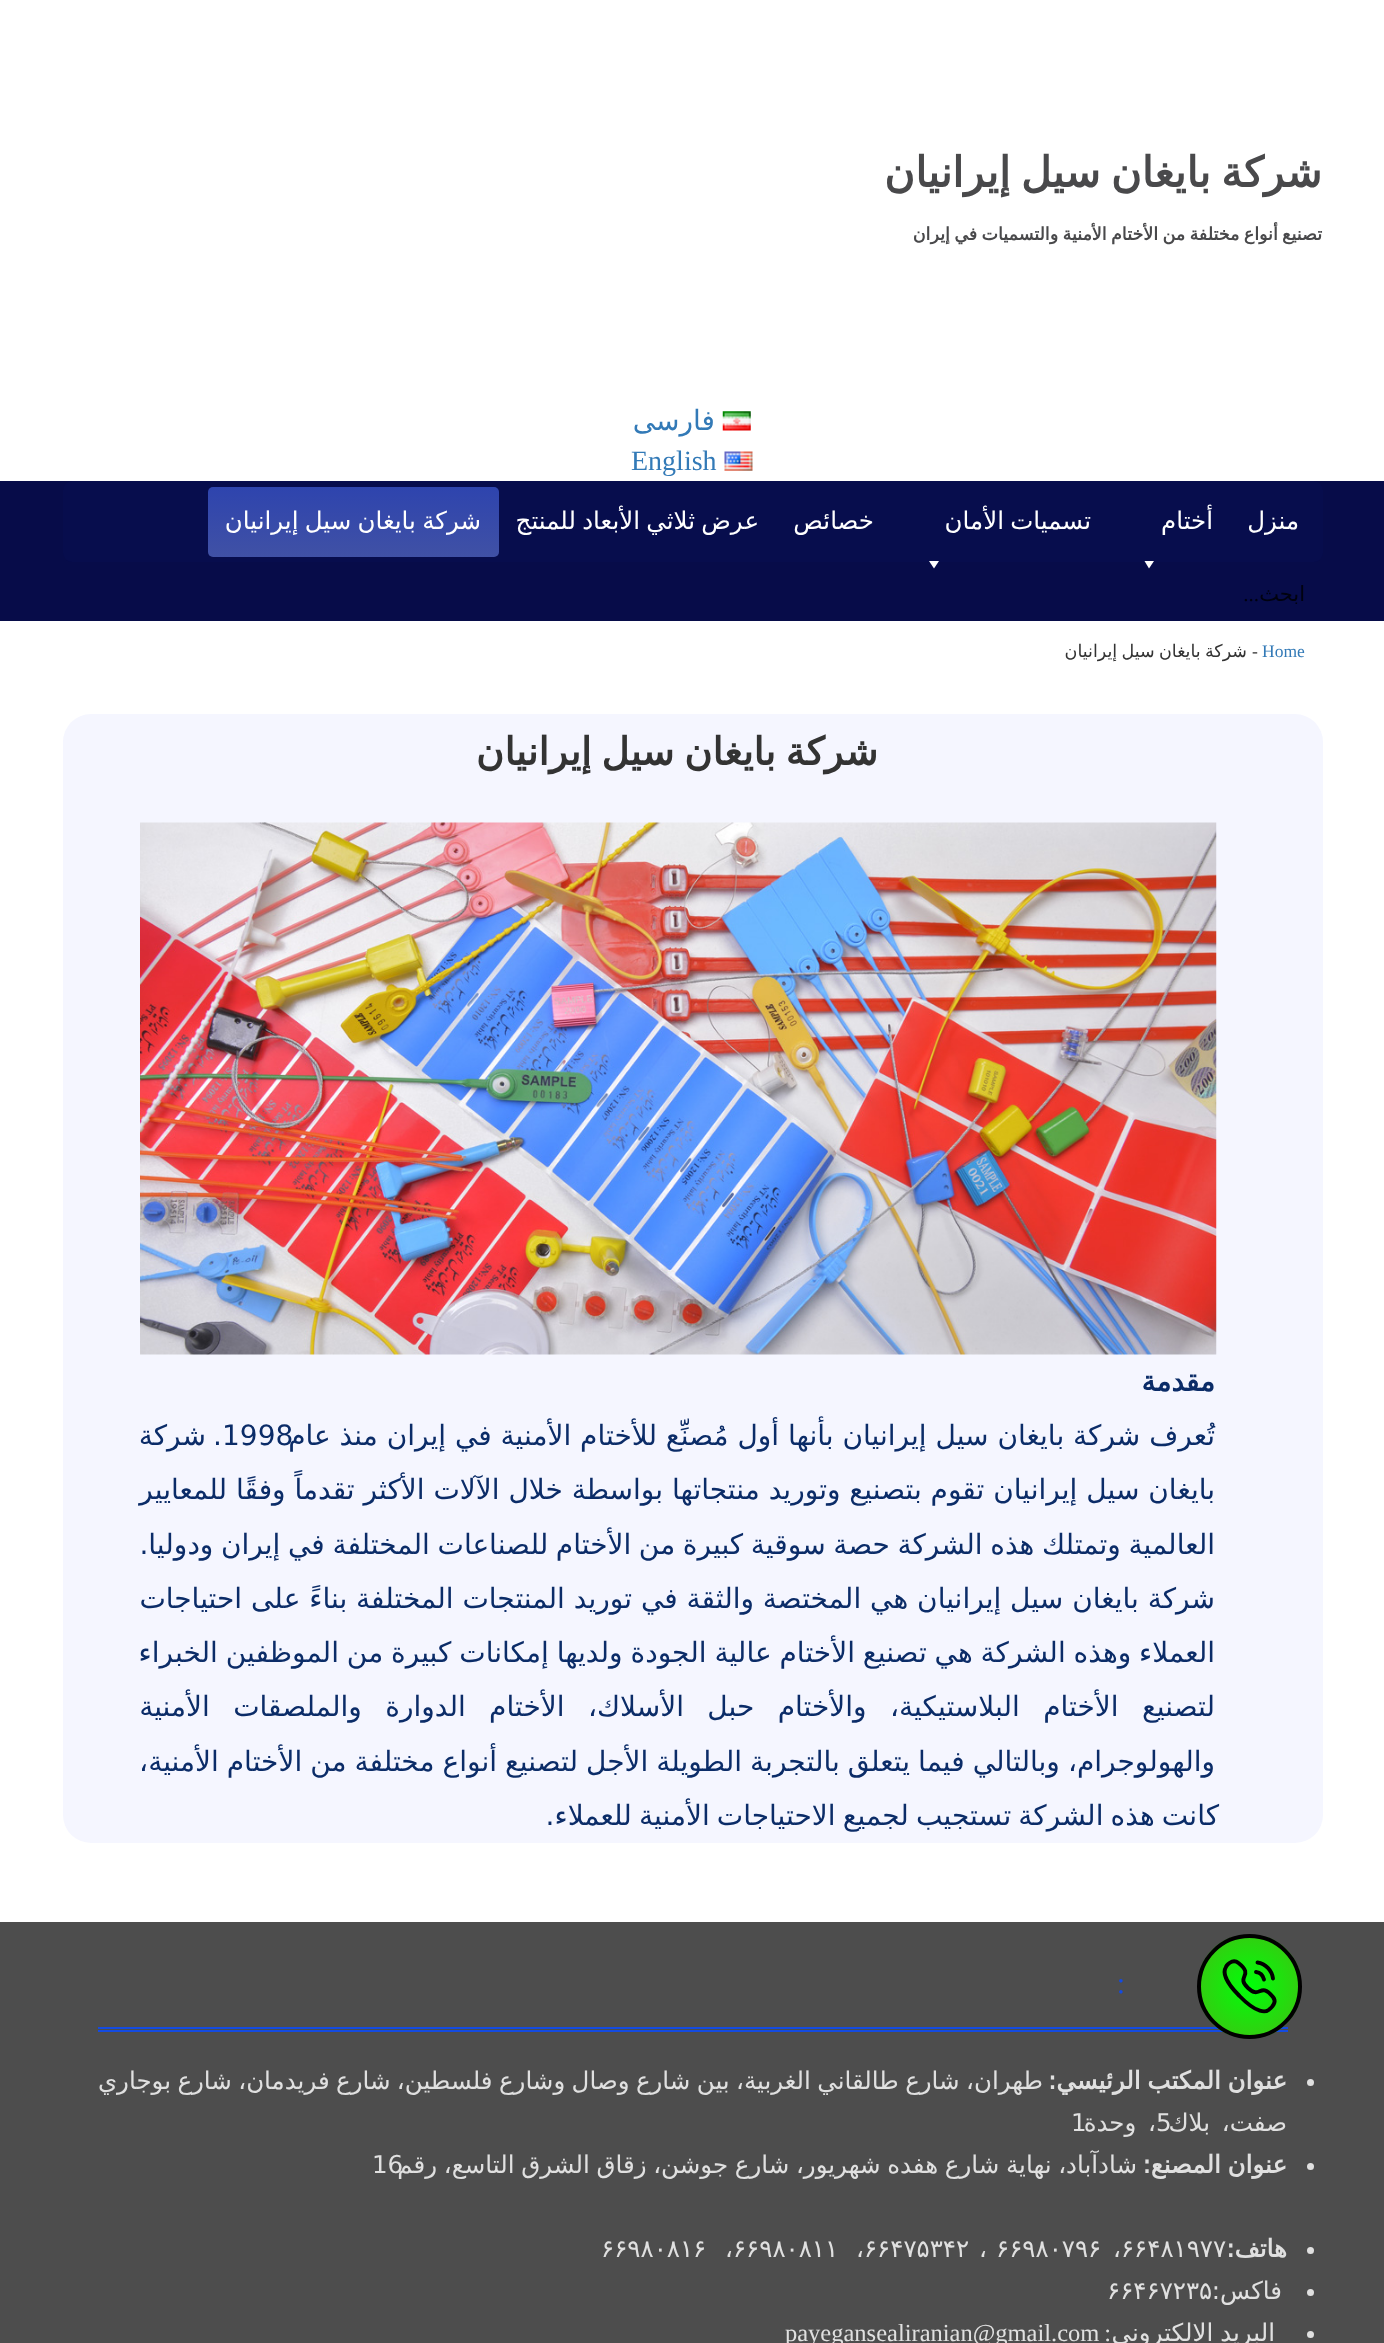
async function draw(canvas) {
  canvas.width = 1384
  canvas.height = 2343
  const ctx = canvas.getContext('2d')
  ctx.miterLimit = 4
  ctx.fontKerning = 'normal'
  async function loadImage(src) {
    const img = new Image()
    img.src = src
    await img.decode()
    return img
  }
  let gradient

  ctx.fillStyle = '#fff'
  ctx.fillRect(0, 0, 1384, 2343)
  ctx.wordSpacing = '-3px'
  ctx.direction = 'rtl'
  ctx.font = 'bold 42px DejaVu Sans'
  ctx.fillStyle = '#49494b'
  ctx.fillText('شركة بايغان سيل إيرانیان', 1322, 187)
  ctx.wordSpacing = '-1.25px'
  ctx.font = 'bold 17.5px DejaVu Sans'
  ctx.fillText('تصنيع أنواع مختلفة من الأختام الأمنية والتسميات في إيران', 1322, 240)
  ctx.drawImage(await loadImage('image0.png'), 722, 411, 29, 20)
  ctx.wordSpacing = '0px'
  ctx.font = '28px DejaVu Sans'
  ctx.fillStyle = '#337ab7'
  ctx.fillText('فارسی', 715, 430)
  ctx.drawImage(await loadImage('image1.png'), 724, 451, 29, 20)
  ctx.direction = 'ltr'
  ctx.font = '28px Liberation Serif'
  ctx.fillText('English', 631, 470)
  ctx.fillStyle = '#070c49'
  ctx.fillRect(0, 481, 1384, 140)
  ctx.fillStyle = '#070d4d'
  ctx.beginPath()
  ctx.roundRect(63, 481, 1260, 81, 9)
  ctx.fill()
  ctx.direction = 'rtl'
  ctx.font = '24.5px DejaVu Sans'
  ctx.fillStyle = '#fff'
  ctx.fillText('منزل', 1299, 529)
  ctx.fillText('أختام', 1213, 529)
  ctx.beginPath()
  ctx.moveTo(1154, 561)
  ctx.lineTo(1149, 568.5)
  ctx.lineTo(1144.5, 561)
  ctx.closePath()
  ctx.fill()
  ctx.wordSpacing = '-1.5px'
  ctx.fillText('تسميات الأمان', 1091, 529)
  ctx.beginPath()
  ctx.moveTo(939, 561)
  ctx.lineTo(934, 568.5)
  ctx.lineTo(929, 561)
  ctx.closePath()
  ctx.fill()
  ctx.wordSpacing = '0px'
  ctx.fillText('خصائص', 874, 529)
  ctx.wordSpacing = '-1.5px'
  ctx.fillText('عرض ثلاثي الأبعاد للمنتج', 759, 529)
  gradient = ctx.createLinearGradient(354, 487, 354, 557)
  gradient.addColorStop(0, '#2e44ae')
  gradient.addColorStop(1, '#4051a5')
  ctx.fillStyle = gradient
  ctx.beginPath()
  ctx.roundRect(208, 487, 291, 70, 5)
  ctx.fill()
  ctx.fillStyle = '#fff'
  ctx.fillText('شركة بايغان سيل إيرانيان', 481, 529)
  ctx.wordSpacing = '0px'
  ctx.font = '21px DejaVu Sans'
  ctx.fillStyle = '#01020f'
  ctx.fillText('ابحث', 1305, 601)
  ctx.font = '21px Liberation Serif'
  ctx.fillText('...', 1259, 601)
  ctx.direction = 'ltr'
  ctx.font = '17.5px Liberation Serif'
  ctx.fillStyle = '#337ab7'
  ctx.fillText('Home', 1262, 657)
  ctx.fillStyle = '#333'
  ctx.fillText('-', 1252, 657)
  ctx.wordSpacing = '-1.25px'
  ctx.direction = 'rtl'
  ctx.font = '17.5px DejaVu Sans'
  ctx.fillText('شركة بايغان سيل إيرانيان', 1247, 657)
  ctx.fillStyle = '#f5f6ff'
  ctx.beginPath()
  ctx.roundRect(63, 714, 1260, 1129, 28)
  ctx.fill()
  ctx.wordSpacing = '-2.5px'
  ctx.font = 'bold 38.5px DejaVu Sans'
  ctx.fillStyle = '#333'
  ctx.fillText('شركة بايغان سيل إيرانيان', 878, 765)
  ctx.drawImage(await loadImage('image2.png'), 140, 822, 1077, 533)
  ctx.wordSpacing = '0px'
  ctx.font = 'bold 28px DejaVu Sans'
  ctx.fillStyle = '#0b2c68'
  ctx.fillText('مقدمة', 1215, 1391)
  ctx.direction = 'ltr'
  ctx.font = '28px DejaVu Sans'
  ctx.fillText('1998', 222, 1445)
  ctx.direction = 'rtl'
  ctx.fillText('تُعرف شركة بايغان سيل إيرانيان بأنها أول مُصنِّع للأختام الأمنية في إيران منذ عام', 1215, 1445)
  ctx.wordSpacing = '-1.75px'
  ctx.fillText('. شركة', 222, 1445)
  ctx.wordSpacing = '0px'
  ctx.fillText('بايغان سيل إيرانيان تقوم بتصنيع وتوريد منتجاتها بواسطة خلال الآلات الأكثر تقدماً وفقًا للمعايير', 1215, 1499)
  ctx.wordSpacing = '-1.25px'
  ctx.fillText('العالمية وتمتلك هذه الشركة حصة سوقية كبيرة من الأختام للصناعات المختلفة في إيران ودوليا.', 1215, 1554)
  ctx.wordSpacing = '0px'
  ctx.fillText('شركة بايغان سيل إيرانيان هي المختصة والثقة في توريد المنتجات المختلفة بناءً على احتياجات', 1215, 1608)
  ctx.wordSpacing = '-1px'
  ctx.fillText('العملاء وهذه الشركة هي تصنيع الأختام عالية الجودة ولديها إمكانات كبيرة من الموظفين الخبراء', 1215, 1662)
  ctx.wordSpacing = '14.5px'
  ctx.fillText('لتصنيع الأختام البلاستيكية، والأختام حبل الأسلاك، الأختام الدوارة والملصقات الأمنية', 1215, 1716)
  ctx.wordSpacing = '-0.9px'
  ctx.fillText('والهولوجرام، وبالتالي فيما يتعلق بالتجربة الطويلة الأجل لتصنيع أنواع مختلفة من الأختام الأمنية،', 1215, 1771)
  ctx.wordSpacing = '-1.75px'
  ctx.fillText('كانت هذه الشركة تستجيب لجميع الاحتياجات الأمنية للعملاء.', 1219, 1825)
  ctx.fillStyle = '#4d4d4d'
  ctx.fillRect(0, 1922, 1384, 421)
  ctx.fillStyle = '#144be1'
  ctx.fillRect(98, 2027, 1190, 2)
  ctx.fillRect(98, 2030, 1190, 2)
  ctx.save()
  ctx.beginPath()
  ctx.roundRect(1197, 1934, 105, 105, 52.5)
  ctx.clip()
  gradient = ctx.createRadialGradient(1250, 1986, 0, 1250, 1986, 69)
  gradient.addColorStop(0, '#00ff08')
  gradient.addColorStop(1, '#44bd14')
  ctx.fillStyle = gradient
  ctx.fillRect(1201, 1937, 98, 98)
  ctx.restore()
  ctx.beginPath()
  ctx.arc(1249.5, 1986.5, 50.5, 0, 2 * Math.PI)
  ctx.strokeStyle = '#000'
  ctx.lineWidth = 4
  ctx.stroke()
  ctx.beginPath()
  ctx.moveTo(1257.5, 1962.5)
  ctx.bezierCurveTo(1265.5, 1963.5, 1272, 1970.5, 1273, 1978.5)
  ctx.moveTo(1256, 1972)
  ctx.bezierCurveTo(1260, 1972.5, 1263, 1975.5, 1264, 1979.5)
  ctx.moveTo(1239.5, 1996)
  ctx.bezierCurveTo(1221.5, 1978, 1224, 1970, 1226, 1967)
  ctx.bezierCurveTo(1226, 1966.5, 1232, 1957.5, 1238.5, 1963)
  ctx.bezierCurveTo(1255, 1976, 1235, 1976, 1248, 1988)
  ctx.bezierCurveTo(1260.5, 2000, 1259.5, 1981, 1273, 1997)
  ctx.bezierCurveTo(1278, 2003.5, 1269, 2009.5, 1268.5, 2010)
  ctx.bezierCurveTo(1266, 2012, 1257.5, 2014.5, 1239.5, 1996)
  ctx.closePath()
  ctx.lineWidth = 3.9
  ctx.lineCap = 'round'
  ctx.lineJoin = 'round'
  ctx.stroke()
  ctx.wordSpacing = '0px'
  ctx.font = '30px Liberation Serif'
  ctx.fillText(':', 1125, 1993)
  ctx.fillStyle = '#e0e0e0'
  ctx.beginPath()
  ctx.arc(1310.5, 2082.5, 3.5, 0, 2 * Math.PI)
  ctx.fill()
  ctx.wordSpacing = '-1px'
  ctx.font = 'bold 24.5px DejaVu Sans'
  ctx.fillText('عنوان المكتب الرئيسي:', 1287, 2089)
  ctx.wordSpacing = '-1.4px'
  ctx.font = '24.5px DejaVu Sans'
  ctx.fillText('طهران، شارع طالقاني الغربية، بين شارع وصال وشارع فلسطین، شارع فريدمان، شارع بوجاري', 1043, 2089)
  ctx.wordSpacing = '0px'
  ctx.direction = 'ltr'
  ctx.fillText('5', 1156, 2131)
  ctx.wordSpacing = '4px'
  ctx.direction = 'rtl'
  ctx.fillText('صفت، بلاك', 1287, 2131)
  ctx.wordSpacing = '0px'
  ctx.direction = 'ltr'
  ctx.fillText('1', 1071, 2131)
  ctx.wordSpacing = '4px'
  ctx.direction = 'rtl'
  ctx.fillText('، وحدة', 1156, 2131)
  ctx.beginPath()
  ctx.arc(1310.5, 2166.5, 3.5, 0, 2 * Math.PI)
  ctx.fill()
  ctx.wordSpacing = '-1px'
  ctx.font = 'bold 24.5px DejaVu Sans'
  ctx.fillText('عنوان المصنع:', 1287, 2173)
  ctx.wordSpacing = '0px'
  ctx.direction = 'ltr'
  ctx.font = '24.5px DejaVu Sans'
  ctx.fillText('16', 372, 2173)
  ctx.wordSpacing = '-1.1px'
  ctx.direction = 'rtl'
  ctx.fillText('شادآباد، نهاية شارع هفده شهریور، شارع جوشن، زقاق الشرق التاسع، رقم', 1137, 2173)
  ctx.beginPath()
  ctx.arc(1310.5, 2250.5, 3.5, 0, 2 * Math.PI)
  ctx.fill()
  ctx.wordSpacing = '0px'
  ctx.font = 'bold 24.5px DejaVu Sans'
  ctx.fillText('هاتف:', 1287, 2257)
  ctx.direction = 'ltr'
  ctx.font = '24.5px DejaVu Sans'
  ctx.fillText('،۶۶۴۸۱۹۷۷', 1113, 2257)
  ctx.fillText('۶۶۹۸۰۷۹۶', 996, 2257)
  ctx.fillText('،', 979, 2257)
  ctx.fillText('،۶۶۴۷۵۳۴۲', 856, 2257)
  ctx.fillText('،۶۶۹۸۰۸۱۱', 725, 2257)
  ctx.fillText('۶۶۹۸۰۸۱۶', 601, 2257)
  ctx.beginPath()
  ctx.arc(1310.5, 2292.5, 3.5, 0, 2 * Math.PI)
  ctx.fill()
  ctx.direction = 'rtl'
  ctx.fillText('فاكس:', 1282, 2299)
  ctx.direction = 'ltr'
  ctx.fillText('۶۶۴۶۷۲۳۵', 1107, 2299)
  ctx.beginPath()
  ctx.arc(1310.5, 2334.5, 3.5, 0, 2 * Math.PI)
  ctx.fill()
  ctx.wordSpacing = '-1px'
  ctx.direction = 'rtl'
  ctx.fillText('البريد الالكتروني', 1275, 2341)
  ctx.wordSpacing = '0px'
  ctx.font = '24.5px Liberation Serif'
  ctx.fillText(':', 1111, 2341)
  ctx.direction = 'ltr'
  ctx.fillText('payegansealiranian@gmail.com', 785, 2341)
}

draw(document.querySelector('canvas'))
